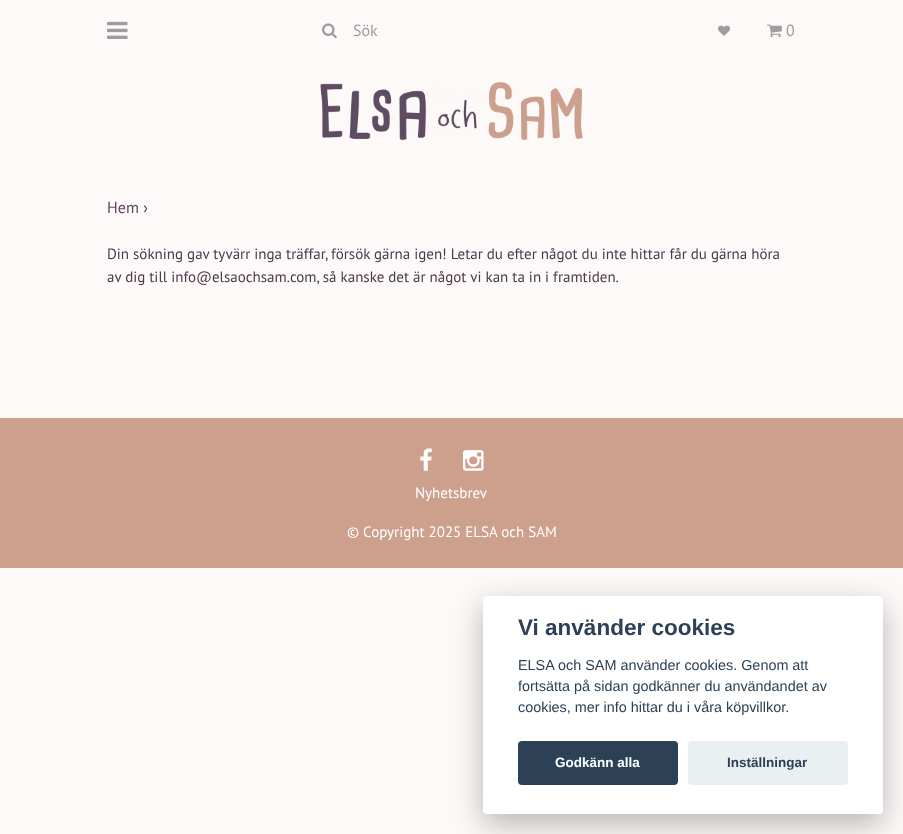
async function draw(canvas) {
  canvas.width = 903
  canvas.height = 834
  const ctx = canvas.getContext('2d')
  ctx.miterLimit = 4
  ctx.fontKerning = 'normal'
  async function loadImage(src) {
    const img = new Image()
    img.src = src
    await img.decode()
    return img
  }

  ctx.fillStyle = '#fcf9f8'
  ctx.fillRect(0, 0, 903, 834)
  ctx.drawImage(await loadImage('image0.png'), 107, 21, 21, 18)
  ctx.drawImage(await loadImage('image1.png'), 322, 23, 15, 16)
  ctx.font = '16px PT Sans'
  ctx.fillStyle = '#9d9d9d'
  ctx.fillText('Sök', 353, 36)
  ctx.drawImage(await loadImage('image2.png'), 718, 25, 12, 11)
  ctx.drawImage(await loadImage('image3.png'), 767, 24, 15, 14)
  ctx.fillText('0', 786, 36)
  ctx.drawImage(await loadImage('image4.png'), 320, 81, 263, 60)
  ctx.fillStyle = '#60435e'
  ctx.fillText('Hem ›', 107, 213)
  ctx.font = '15px PT Sans'
  ctx.fillStyle = '#4a394d'
  ctx.fillText('Din sökning gav tyvärr inga träffar, försök gärna igen! Letar du efter något du inte hittar får du gärna höra', 107, 259)
  ctx.fillText('av dig till info@elsaochsam.com, så kanske det är något vi kan ta in i framtiden.', 107, 282)
  ctx.fillStyle = '#cd9f8d'
  ctx.fillRect(0, 418, 903, 150)
  ctx.drawImage(await loadImage('image5.png'), 420, 448, 12, 23)
  ctx.drawImage(await loadImage('image6.png'), 463, 450, 21, 21)
  ctx.fillStyle = '#fff'
  ctx.fillText('Nyhetsbrev', 415, 498)
  ctx.fillText('© Copyright 2025 ELSA och SAM', 347, 537)
  ctx.fillStyle = '#02020347'
  ctx.filter = 'blur(15px)'
  ctx.beginPath()
  ctx.roundRect(483, 606, 400, 218, 4)
  ctx.fill()
  ctx.filter = 'none'
  ctx.fillStyle = '#fff'
  ctx.beginPath()
  ctx.roundRect(483, 596, 400, 218, 4)
  ctx.fill()
  ctx.font = 'bold 22.5px Liberation Sans'
  ctx.fillStyle = '#2d4156'
  ctx.fillText('Vi använder cookies', 518, 635)
  ctx.font = '14.4px Liberation Sans'
  ctx.fillText('ELSA och SAM använder cookies. Genom att', 518, 670)
  ctx.fillText('fortsätta på sidan godkänner du användandet av', 518, 691)
  ctx.fillText('cookies, mer info hittar du i våra köpvillkor.', 518, 712)
  ctx.beginPath()
  ctx.roundRect(518, 741, 160, 44, 4)
  ctx.fill()
  ctx.font = 'bold 13.5px Liberation Sans'
  ctx.fillStyle = '#fff'
  ctx.fillText('Godkänn alla', 555, 767)
  ctx.fillStyle = '#eaeff2'
  ctx.beginPath()
  ctx.roundRect(688, 741, 160, 44, 4)
  ctx.fill()
  ctx.fillStyle = '#2d4156'
  ctx.fillText('Inställningar', 727, 767)
}

draw(document.querySelector('canvas'))
